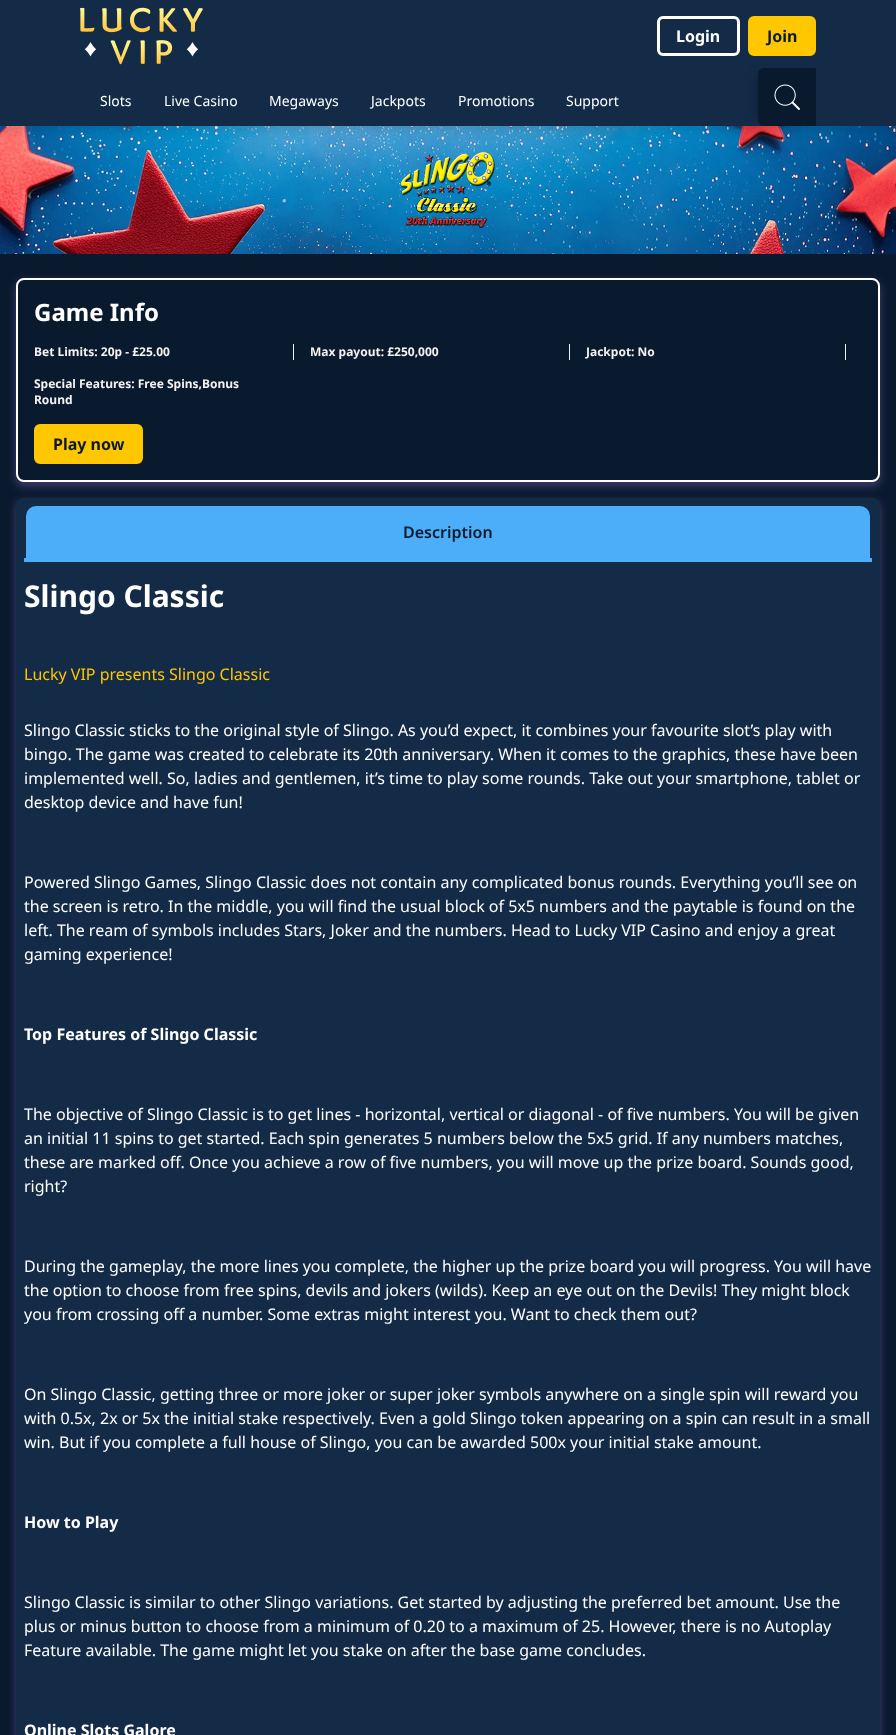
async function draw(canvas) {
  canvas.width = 896
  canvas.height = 1735
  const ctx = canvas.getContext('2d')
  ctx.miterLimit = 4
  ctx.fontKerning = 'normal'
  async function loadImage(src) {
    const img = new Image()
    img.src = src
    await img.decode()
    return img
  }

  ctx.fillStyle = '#0a1a2e'
  ctx.fillRect(0, 0, 896, 1735)
  ctx.drawImage(await loadImage('image2.png'), 0, 126, 896, 128)
  ctx.fillStyle = '#0000001a'
  ctx.filter = 'blur(5px)'
  ctx.beginPath()
  ctx.rect(0, 5, 896, 126)
  ctx.fill()
  ctx.filter = 'none'
  ctx.fillStyle = '#142b48'
  ctx.fillRect(0, 0, 896, 126)
  ctx.drawImage(await loadImage('image0.png'), 80, 7, 123, 58)
  ctx.beginPath()
  ctx.roundRect(658.5, 17.5, 80, 37, 4.5)
  ctx.strokeStyle = '#fff'
  ctx.lineWidth = 3
  ctx.stroke()
  ctx.font = 'bold 16px Noto Sans'
  ctx.fillStyle = '#fff'
  ctx.fillText('Login', 676, 42)
  ctx.fillStyle = '#ffc700'
  ctx.beginPath()
  ctx.roundRect(749.5, 17.5, 65, 37, 4.5)
  ctx.fill()
  ctx.strokeStyle = '#ffc700'
  ctx.stroke()
  ctx.fillStyle = '#0a1a2e'
  ctx.fillText('Join', 767, 42)
  ctx.font = '14px Noto Sans'
  ctx.fillStyle = '#fff'
  ctx.fillText('Slots', 100, 106)
  ctx.fillText('Live Casino', 164, 106)
  ctx.fillText('Megaways', 269, 106)
  ctx.fillText('Jackpots', 371, 106)
  ctx.fillText('Promotions', 458, 106)
  ctx.fillText('Support', 566, 106)
  ctx.fillStyle = '#00000033'
  ctx.filter = 'blur(5px)'
  ctx.beginPath()
  ctx.roundRect(755, 73, 48, 48, 1)
  ctx.fill()
  ctx.filter = 'none'
  ctx.fillStyle = '#0a1a2e'
  ctx.beginPath()
  ctx.roundRect(758, 68, 58, 58, [6, 0, 0, 6])
  ctx.fill()
  ctx.drawImage(await loadImage('image1.png'), 774, 84, 26, 26)
  ctx.drawImage(await loadImage('image3.png'), 400, 152, 95, 77)
  ctx.fillStyle = '#ac81ee59'
  ctx.filter = 'blur(5px)'
  ctx.beginPath()
  ctx.roundRect(16, 282, 864, 204, 8)
  ctx.fill()
  ctx.filter = 'none'
  ctx.fillStyle = '#0a1a2e'
  ctx.beginPath()
  ctx.roundRect(17, 279, 862, 202, 7)
  ctx.fill()
  ctx.strokeStyle = '#fff'
  ctx.lineWidth = 2
  ctx.stroke()
  ctx.font = 'bold 24px Noto Sans'
  ctx.fillStyle = '#fff'
  ctx.fillText('Game Info', 34, 321)
  ctx.fillStyle = '#f2f2f2'
  ctx.fillRect(293, 344, 1, 16)
  ctx.font = 'bold 12px Noto Sans'
  ctx.fillText('Bet Limits: 20p - £25.00', 34, 356)
  ctx.fillRect(569, 344, 1, 16)
  ctx.fillText('Max payout: £250,000', 310, 356)
  ctx.fillRect(845, 344, 1, 16)
  ctx.fillText('Jackpot: No', 586, 356)
  ctx.fillText('Special Features: Free Spins,Bonus', 34, 388)
  ctx.fillText('Round', 34, 404)
  ctx.fillStyle = '#ffc700'
  ctx.beginPath()
  ctx.roundRect(35.5, 425.5, 106, 37, 4.5)
  ctx.fill()
  ctx.strokeStyle = '#ffc700'
  ctx.lineWidth = 3
  ctx.stroke()
  ctx.font = 'bold 16px Noto Sans'
  ctx.fillStyle = '#0a1a2e'
  ctx.fillText('Play now', 53, 450)
  ctx.fillStyle = '#ac81ee59'
  ctx.filter = 'blur(5px)'
  ctx.beginPath()
  ctx.roundRect(16, 502, 864, 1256, 8)
  ctx.fill()
  ctx.filter = 'none'
  ctx.fillStyle = '#142b48'
  ctx.beginPath()
  ctx.roundRect(16, 498, 864, 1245, 8)
  ctx.fill()
  ctx.fillStyle = '#4caef8'
  ctx.fillRect(24, 558, 848, 4)
  ctx.beginPath()
  ctx.roundRect(26, 506, 844, 52, [10, 10, 0, 0])
  ctx.fill()
  ctx.font = '600 16px Noto Sans'
  ctx.fillStyle = '#0a1a2e'
  ctx.fillText('Description', 403, 538)
  ctx.font = 'bold 30px Noto Sans'
  ctx.fillStyle = '#fff'
  ctx.fillText('Slingo Classic', 24, 607)
  ctx.font = '16px Noto Sans'
  ctx.fillStyle = '#ffc700'
  ctx.fillText('Lucky VIP presents Slingo Classic', 24, 680)
  ctx.fillStyle = '#fff'
  ctx.fillText('Slingo Classic sticks to the original style of Slingo. As you’d expect, it combines your favourite slot’s play with', 24, 736)
  ctx.fillText('bingo. The game was created to celebrate its 20th anniversary. When it comes to the graphics, these have been', 24, 760)
  ctx.fillText('implemented well. So, ladies and gentlemen, it’s time to play some rounds. Take out your smartphone, tablet or', 24, 784)
  ctx.fillText('desktop device and have fun!', 24, 808)
  ctx.fillText('Powered Slingo Games, Slingo Classic does not contain any complicated bonus rounds. Everything you’ll see on', 24, 888)
  ctx.fillText('the screen is retro. In the middle, you will find the usual block of 5x5 numbers and the paytable is found on the', 24, 912)
  ctx.fillText('left. The ream of symbols includes Stars, Joker and the numbers. Head to Lucky VIP Casino and enjoy a great', 24, 936)
  ctx.fillText('gaming experience!', 24, 960)
  ctx.font = 'bold 16px Noto Sans'
  ctx.fillText('Top Features of Slingo Classic', 24, 1040)
  ctx.font = '16px Noto Sans'
  ctx.fillText('The objective of Slingo Classic is to get lines - horizontal, vertical or diagonal - of five numbers. You will be given', 24, 1120)
  ctx.fillText('an initial 11 spins to get started. Each spin generates 5 numbers below the 5x5 grid. If any numbers matches,', 24, 1144)
  ctx.fillText('these are marked off. Once you achieve a row of five numbers, you will move up the prize board. Sounds good,', 24, 1168)
  ctx.fillText('right?', 24, 1192)
  ctx.fillText('During the gameplay, the more lines you complete, the higher up the prize board you will progress. You will have', 24, 1272)
  ctx.fillText('the option to choose from free spins, devils and jokers (wilds). Keep an eye out on the Devils! They might block', 24, 1296)
  ctx.fillText('you from crossing off a number. Some extras might interest you. Want to check them out?', 24, 1320)
  ctx.fillText('On Slingo Classic, getting three or more joker or super joker symbols anywhere on a single spin will reward you', 24, 1400)
  ctx.fillText('with 0.5x, 2x or 5x the initial stake respectively. Even a gold Slingo token appearing on a spin can result in a small', 24, 1424)
  ctx.fillText('win. But if you complete a full house of Slingo, you can be awarded 500x your initial stake amount.', 24, 1448)
  ctx.font = 'bold 16px Noto Sans'
  ctx.fillText('How to Play', 24, 1528)
  ctx.font = '16px Noto Sans'
  ctx.fillText('Slingo Classic is similar to other Slingo variations. Get started by adjusting the preferred bet amount. Use the', 24, 1608)
  ctx.fillText('plus or minus button to choose from a minimum of 0.20 to a maximum of 25. However, there is no Autoplay', 24, 1632)
  ctx.fillText('Feature available. The game might let you stake on after the base game concludes.', 24, 1656)
  ctx.font = 'bold 16px Noto Sans'
  ctx.fillText('Online Slots Galore', 24, 1736)
}

draw(document.querySelector('canvas'))
